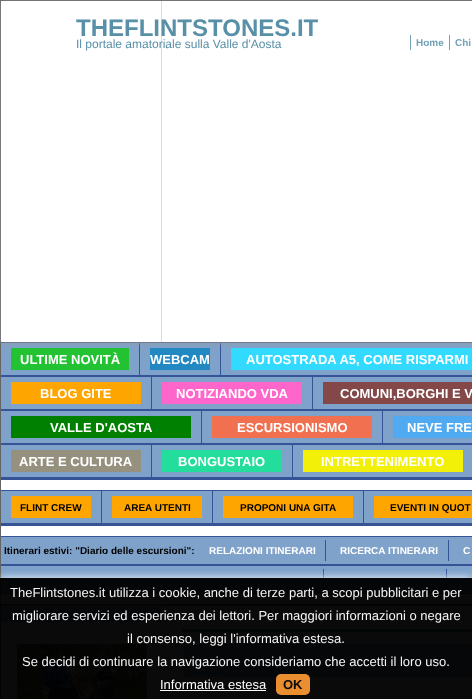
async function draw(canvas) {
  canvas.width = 472
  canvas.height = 699
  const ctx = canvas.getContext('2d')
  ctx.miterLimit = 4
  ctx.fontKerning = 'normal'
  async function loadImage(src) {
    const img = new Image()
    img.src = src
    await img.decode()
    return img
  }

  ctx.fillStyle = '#fff'
  ctx.fillRect(0, 0, 472, 699)
  ctx.drawImage(await loadImage('image0.png'), 1, 1, 471, 341)
  ctx.strokeStyle = '#646464'
  ctx.strokeRect(0.5, 0.5, 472, 604)
  ctx.fillStyle = '#7fa2ca'
  ctx.fillRect(1, 343, 471, 32)
  ctx.fillStyle = '#365397'
  ctx.fillRect(1, 342, 471, 1)
  ctx.fillRect(139, 343, 1, 32)
  ctx.fillStyle = '#22c233'
  ctx.fillRect(11, 348, 118, 22)
  ctx.fillStyle = '#365397'
  ctx.fillRect(220, 343, 1, 32)
  ctx.fillStyle = '#2288c2'
  ctx.fillRect(150, 348, 60, 22)
  ctx.fillStyle = '#33daff'
  ctx.fillRect(231, 348, 241, 22)
  ctx.save()
  ctx.beginPath()
  ctx.moveTo(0, 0)
  ctx.lineTo(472, 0)
  ctx.lineTo(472, 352)
  ctx.lineTo(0, 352)
  ctx.closePath()
  ctx.moveTo(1, 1)
  ctx.lineTo(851, 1)
  ctx.lineTo(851, 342)
  ctx.lineTo(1, 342)
  ctx.closePath()
  ctx.clip('evenodd')
  ctx.fillStyle = '#999'
  ctx.filter = 'blur(2.5px)'
  ctx.beginPath()
  ctx.rect(1, 2, 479, 341)
  ctx.fill()
  ctx.filter = 'none'
  ctx.restore()
  ctx.font = 'bold 24px Liberation Sans'
  ctx.fillStyle = '#5890a8'
  ctx.fillText('THEFLINTSTONES.IT', 76, 36)
  ctx.font = '12px Liberation Sans'
  ctx.fillText('Il portale amatoriale sulla Valle d\'Aosta', 76, 48)
  ctx.fillStyle = '#73a2b6'
  ctx.fillRect(410, 35, 1, 15)
  ctx.fillRect(449, 35, 1, 15)
  ctx.font = 'bold 10px Liberation Sans'
  ctx.fillText('Home', 416, 46)
  ctx.fillText('Chi', 455, 46)
  ctx.fillStyle = '#365397'
  ctx.fillRect(1, 375, 471, 2)
  ctx.font = 'bold 13px Liberation Sans'
  ctx.fillStyle = '#fff'
  ctx.fillText('ULTIME NOVITÀ', 20, 364)
  ctx.fillText('WEBCAM', 150, 364)
  ctx.fillText('AUTOSTRADA A5, COME RISPARMI', 246, 364)
  ctx.fillStyle = '#7fa2ca'
  ctx.fillRect(1, 377, 471, 32)
  ctx.fillStyle = '#365397'
  ctx.fillRect(1, 409, 471, 2)
  ctx.fillRect(151, 377, 1, 32)
  ctx.fillStyle = '#ffa500'
  ctx.fillRect(11, 382, 130, 22)
  ctx.fillStyle = '#fff'
  ctx.fillText('BLOG GITE', 40, 398)
  ctx.fillStyle = '#365397'
  ctx.fillRect(312, 377, 1, 32)
  ctx.fillStyle = '#f6c'
  ctx.fillRect(162, 382, 140, 22)
  ctx.fillStyle = '#fff'
  ctx.fillText('NOTIZIANDO VDA', 176, 398)
  ctx.fillStyle = '#844848'
  ctx.fillRect(323, 382, 149, 22)
  ctx.fillStyle = '#fff'
  ctx.fillText('COMUNI,BORGHI E V', 340, 398)
  ctx.fillStyle = '#7fa2ca'
  ctx.fillRect(1, 411, 471, 32)
  ctx.fillStyle = '#365397'
  ctx.fillRect(1, 443, 471, 2)
  ctx.fillRect(201, 411, 1, 32)
  ctx.fillStyle = '#008000'
  ctx.fillRect(11, 416, 180, 22)
  ctx.fillStyle = '#fff'
  ctx.fillText('VALLE D\'AOSTA', 50, 432)
  ctx.fillStyle = '#365397'
  ctx.fillRect(382, 411, 1, 32)
  ctx.fillStyle = '#f17050'
  ctx.fillRect(212, 416, 160, 22)
  ctx.fillStyle = '#fff'
  ctx.fillText('ESCURSIONISMO', 237, 432)
  ctx.fillStyle = '#50aaf1'
  ctx.fillRect(393, 416, 79, 22)
  ctx.fillStyle = '#fff'
  ctx.fillText('NEVE FRE', 407, 432)
  ctx.fillStyle = '#7fa2ca'
  ctx.fillRect(1, 445, 471, 32)
  ctx.fillStyle = '#365397'
  ctx.fillRect(1, 477, 471, 3)
  ctx.fillRect(151, 445, 1, 32)
  ctx.fillStyle = '#96907f'
  ctx.fillRect(11, 450, 130, 22)
  ctx.fillStyle = '#fff'
  ctx.fillText('ARTE E CULTURA', 19, 466)
  ctx.fillStyle = '#365397'
  ctx.fillRect(292, 445, 1, 32)
  ctx.fillStyle = '#23dd9c'
  ctx.fillRect(162, 450, 120, 22)
  ctx.fillStyle = '#fff'
  ctx.fillText('BONGUSTAIO', 178, 466)
  ctx.fillStyle = '#f2ef09'
  ctx.fillRect(303, 450, 160, 22)
  ctx.fillStyle = '#fff'
  ctx.fillText('INTRETTENIMENTO', 321, 466)
  ctx.fillStyle = '#7fa2ca'
  ctx.fillRect(1, 491, 471, 32)
  ctx.fillStyle = '#365397'
  ctx.fillRect(1, 490, 471, 1)
  ctx.fillRect(1, 523, 471, 3)
  ctx.fillRect(101, 491, 1, 32)
  ctx.fillStyle = '#ffa500'
  ctx.fillRect(11, 496, 80, 22)
  ctx.font = 'bold 10px Liberation Sans'
  ctx.fillStyle = '#000'
  ctx.fillText('FLINT CREW', 20, 511)
  ctx.fillStyle = '#365397'
  ctx.fillRect(212, 491, 1, 32)
  ctx.fillStyle = '#ffa500'
  ctx.fillRect(112, 496, 90, 22)
  ctx.fillStyle = '#000'
  ctx.fillText('AREA UTENTI', 124, 511)
  ctx.fillStyle = '#365397'
  ctx.fillRect(363, 491, 1, 32)
  ctx.fillStyle = '#ffa500'
  ctx.fillRect(223, 496, 130, 22)
  ctx.fillStyle = '#000'
  ctx.fillText('PROPONI UNA GITA', 240, 511)
  ctx.fillStyle = '#ffa500'
  ctx.fillRect(374, 496, 98, 22)
  ctx.fillStyle = '#000'
  ctx.fillText('EVENTI IN QUOT', 390, 511)
  ctx.fillStyle = '#7fa2ca'
  ctx.fillRect(1, 537, 471, 27)
  ctx.fillStyle = '#365397'
  ctx.fillRect(1, 536, 471, 1)
  ctx.fillRect(1, 564, 471, 2)
  ctx.fillStyle = '#000'
  ctx.fillText('Itinerari estivi: "Diario delle escursioni":', 4, 554)
  ctx.fillStyle = '#365397'
  ctx.fillRect(325, 540, 1, 21)
  ctx.fillStyle = '#fff'
  ctx.fillText('RELAZIONI ITINERARI', 209, 554)
  ctx.fillStyle = '#365397'
  ctx.fillRect(448, 540, 1, 21)
  ctx.fillStyle = '#fff'
  ctx.fillText('RICERCA ITINERARI', 340, 554)
  ctx.fillText('C', 463, 554)
  ctx.fillStyle = '#7fa2ca'
  ctx.fillRect(1, 566, 471, 27)
  ctx.fillStyle = '#365397'
  ctx.fillRect(1, 593, 471, 1)
  ctx.fillRect(323, 569, 1, 21)
  ctx.fillRect(446, 569, 1, 21)
  ctx.drawImage(await loadImage('image1.png'), 1, 606, 471, 93)
  ctx.strokeRect(0.5, 605.5, 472, 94)
  ctx.fillStyle = '#9cbad6'
  ctx.fillRect(1, 606, 161, 16)
  ctx.fillStyle = '#fff'
  ctx.fillRect(161, 632, 1, 67)
  ctx.drawImage(await loadImage('image2.png'), 17, 644, 130, 55)
  ctx.fillStyle = '#5890a8'
  ctx.fillRect(182, 629, 290, 3)
  ctx.fillStyle = '#9cbad6'
  ctx.fillRect(184, 644, 288, 33)
  ctx.fillStyle = '#1e90ff'
  ctx.fillRect(194, 673, 28, 1)
  ctx.save()
  ctx.beginPath()
  ctx.rect(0, 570, 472, 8)
  ctx.clip()
  ctx.fillStyle = '#fffffff5'
  ctx.filter = 'blur(4px)'
  ctx.beginPath()
  ctx.rect(0, 578, 472, 121)
  ctx.fill()
  ctx.filter = 'none'
  ctx.restore()
  ctx.fillStyle = '#000000f5'
  ctx.fillRect(0, 578, 472, 121)
  ctx.font = '13px Liberation Sans'
  ctx.fillStyle = '#f5f5f5'
  ctx.fillText('TheFlintstones.it utilizza i cookie, anche di terze parti, a scopi pubblicitari e per', 10, 597)
  ctx.fillText('migliorare servizi ed esperienza dei lettori. Per maggiori informazioni o negare', 12, 620)
  ctx.fillText('il consenso, leggi l\'informativa estesa.', 127, 643)
  ctx.fillText('Se decidi di continuare la navigazione consideriamo che accetti il loro uso.', 22, 666)
  ctx.fillStyle = '#fff'
  ctx.fillText('Informativa estesa', 160, 689)
  ctx.fillRect(160, 690, 106, 1)
  ctx.fillStyle = '#f59432f5'
  ctx.beginPath()
  ctx.roundRect(276, 674, 34, 21, 5)
  ctx.fill()
  ctx.font = 'bold 13px Liberation Sans'
  ctx.fillStyle = '#0a0a0a'
  ctx.fillText('OK', 283, 689)
}

draw(document.querySelector('canvas'))
